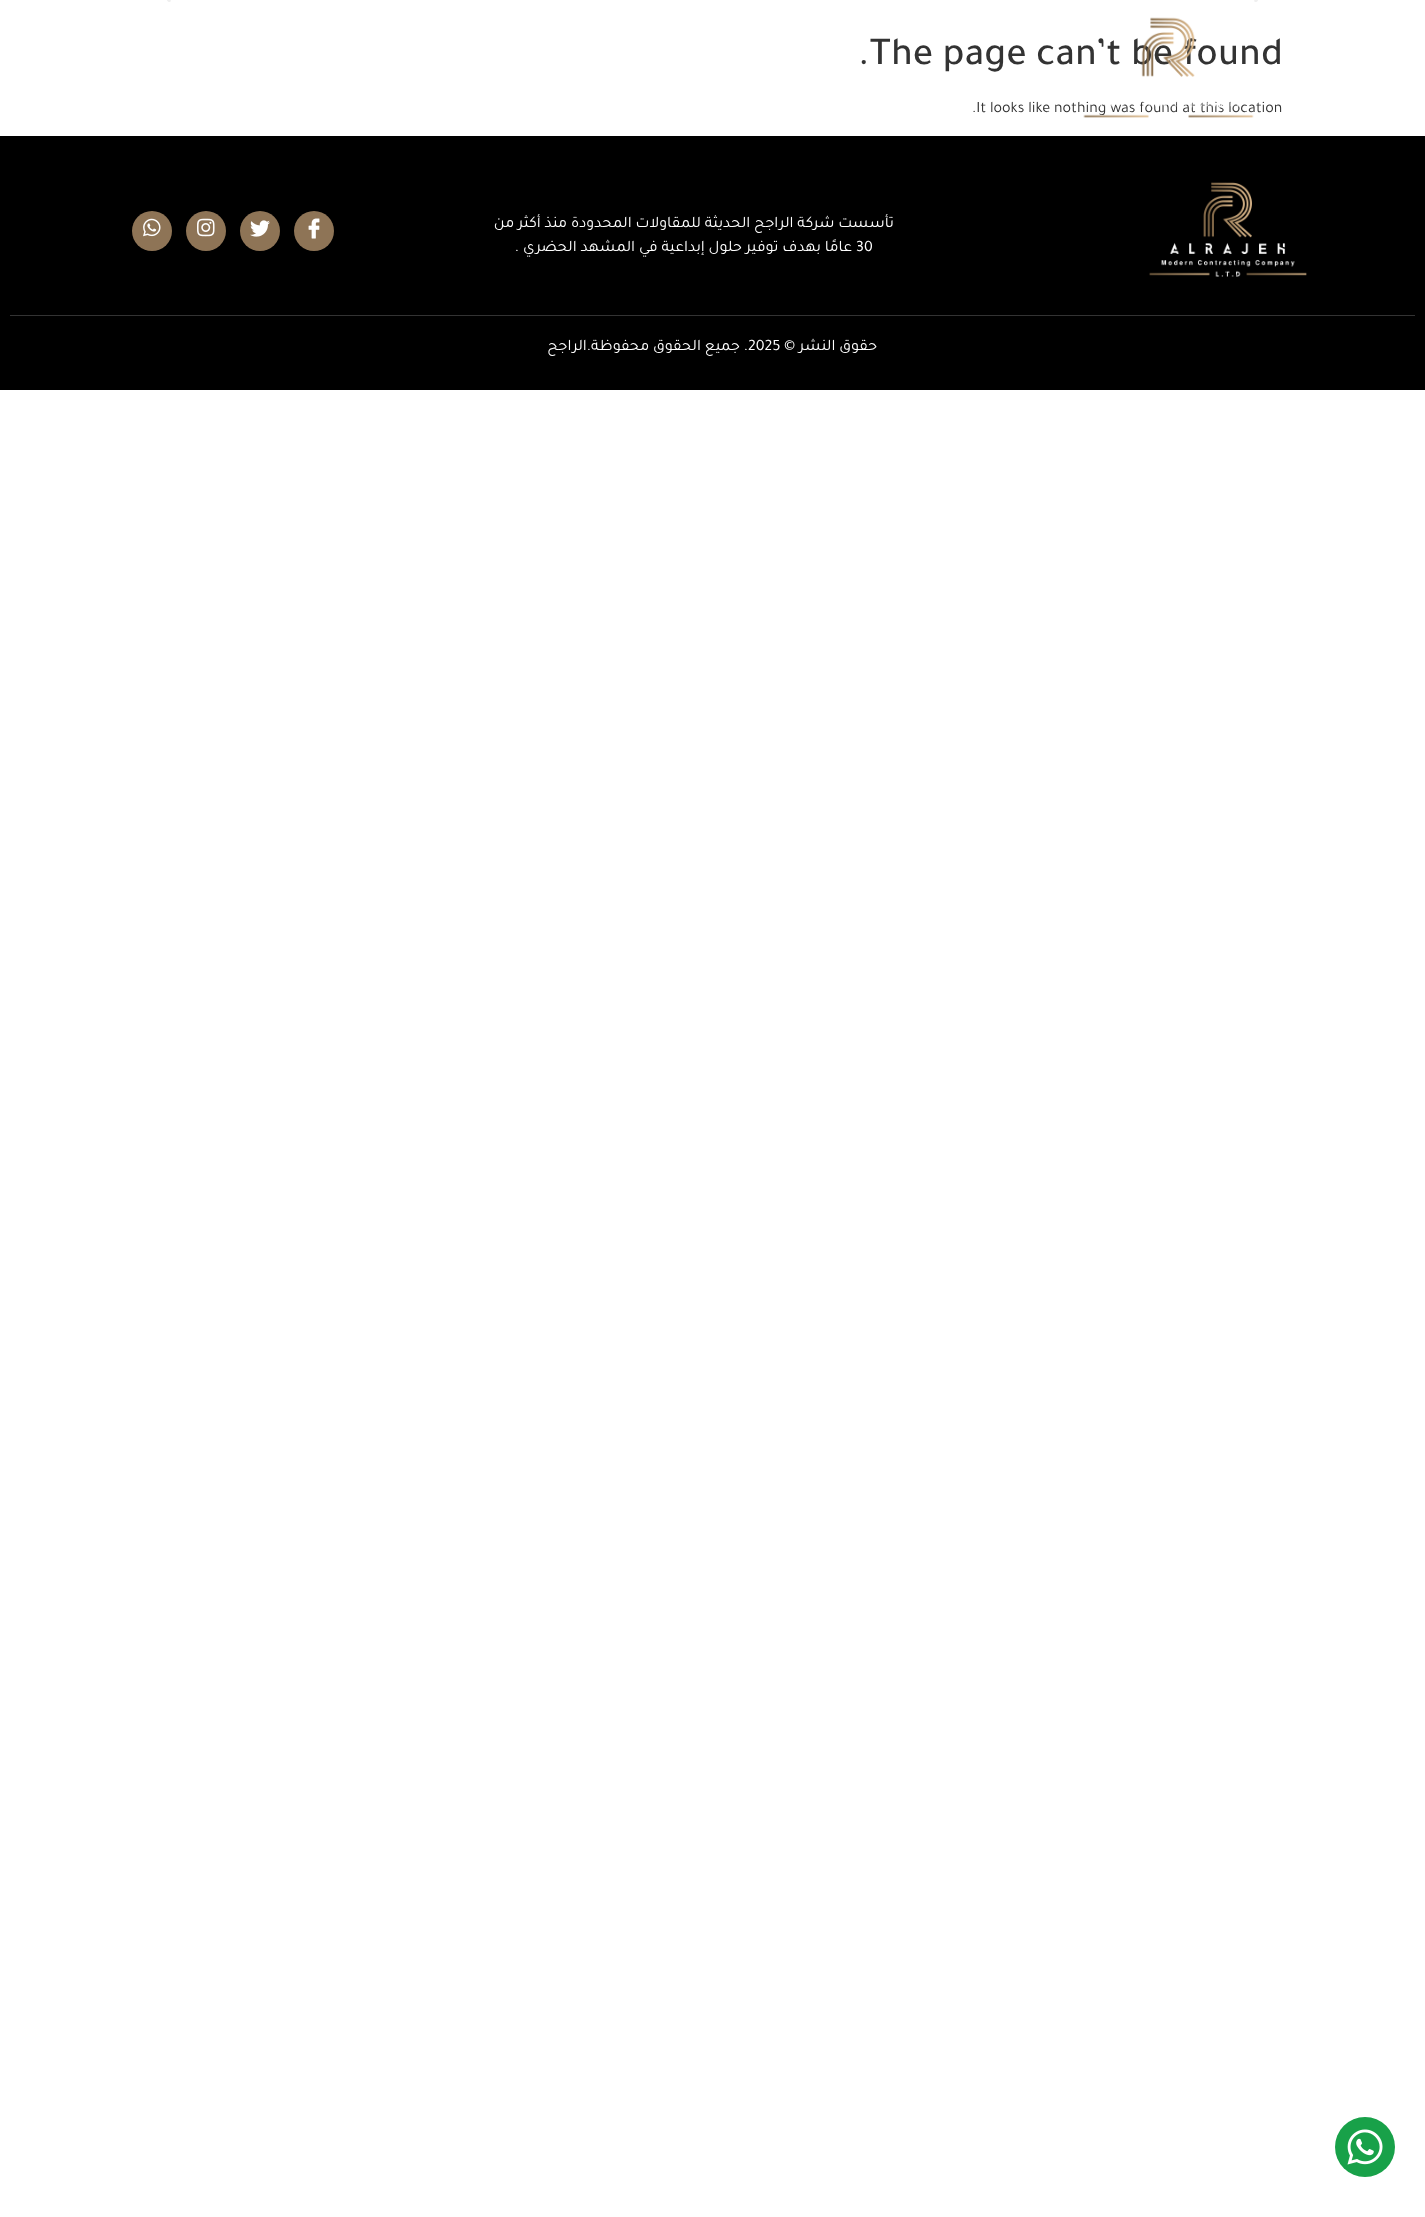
async function draw(canvas) {
  canvas.width = 1425
  canvas.height = 2217
  const ctx = canvas.getContext('2d')
  ctx.miterLimit = 4
  ctx.fontKerning = 'normal'
  async function loadImage(src) {
    const img = new Image()
    img.src = src
    await img.decode()
    return img
  }

  ctx.fillStyle = '#fff'
  ctx.fillRect(0, 0, 1425, 2217)
  ctx.drawImage(await loadImage('image0.png'), 1254, 0, 4, 2)
  ctx.drawImage(await loadImage('image1.png'), 167, 0, 4, 2)
  ctx.font = '500 40px Tajawal'
  ctx.fillStyle = '#333'
  ctx.fillText('.The page can’t be found', 858, 64)
  ctx.font = '16px Tajawal'
  ctx.fillText('.It looks like nothing was found at this location', 972, 112)
  ctx.drawImage(await loadImage('image2.png'), 1083, 17, 171, 101)
  ctx.fillStyle = '#000'
  ctx.fillRect(0, 136, 1425, 254)
  ctx.fillStyle = '#333'
  ctx.fillRect(10, 315, 1405, 1)
  ctx.drawImage(await loadImage('image3.png'), 1149, 182, 158, 95)
  ctx.direction = 'rtl'
  ctx.fillStyle = '#fff'
  ctx.fillText('تأسست شركة الراجح الحديثة للمقاولات المحدودة منذ أكثر من', 894, 227)
  ctx.direction = 'ltr'
  ctx.fillText('30', 856, 251)
  ctx.direction = 'rtl'
  ctx.fillText('عامًا بهدف توفير حلول إبداعية في المشهد الحضري .', 852, 251)
  ctx.fillStyle = '#8e7456'
  ctx.beginPath()
  ctx.arc(314, 231, 20, 0, 2 * Math.PI)
  ctx.fill()
  ctx.drawImage(await loadImage('image4.png'), 308, 218, 12, 21)
  ctx.beginPath()
  ctx.arc(260, 231, 20, 0, 2 * Math.PI)
  ctx.fill()
  ctx.drawImage(await loadImage('image5.png'), 250, 220, 20, 17)
  ctx.beginPath()
  ctx.arc(206, 231, 20, 0, 2 * Math.PI)
  ctx.fill()
  ctx.drawImage(await loadImage('image6.png'), 197, 218, 18, 19)
  ctx.beginPath()
  ctx.arc(152, 231, 20, 0, 2 * Math.PI)
  ctx.fill()
  ctx.drawImage(await loadImage('image7.png'), 143, 218, 18, 19)
  ctx.fillStyle = '#fff'
  ctx.fillText('حقوق النشر ©', 877, 350)
  ctx.direction = 'ltr'
  ctx.fillText('2025', 748, 350)
  ctx.direction = 'rtl'
  ctx.fillText('. جميع الحقوق محفوظة.الراجح', 748, 350)
  ctx.fillStyle = '#18a149'
  ctx.beginPath()
  ctx.arc(1365, 2147, 30, 0, 2 * Math.PI)
  ctx.fill()
  ctx.drawImage(await loadImage('image8.png'), 1347, 2129, 36, 36)
}

draw(document.querySelector('canvas'))
